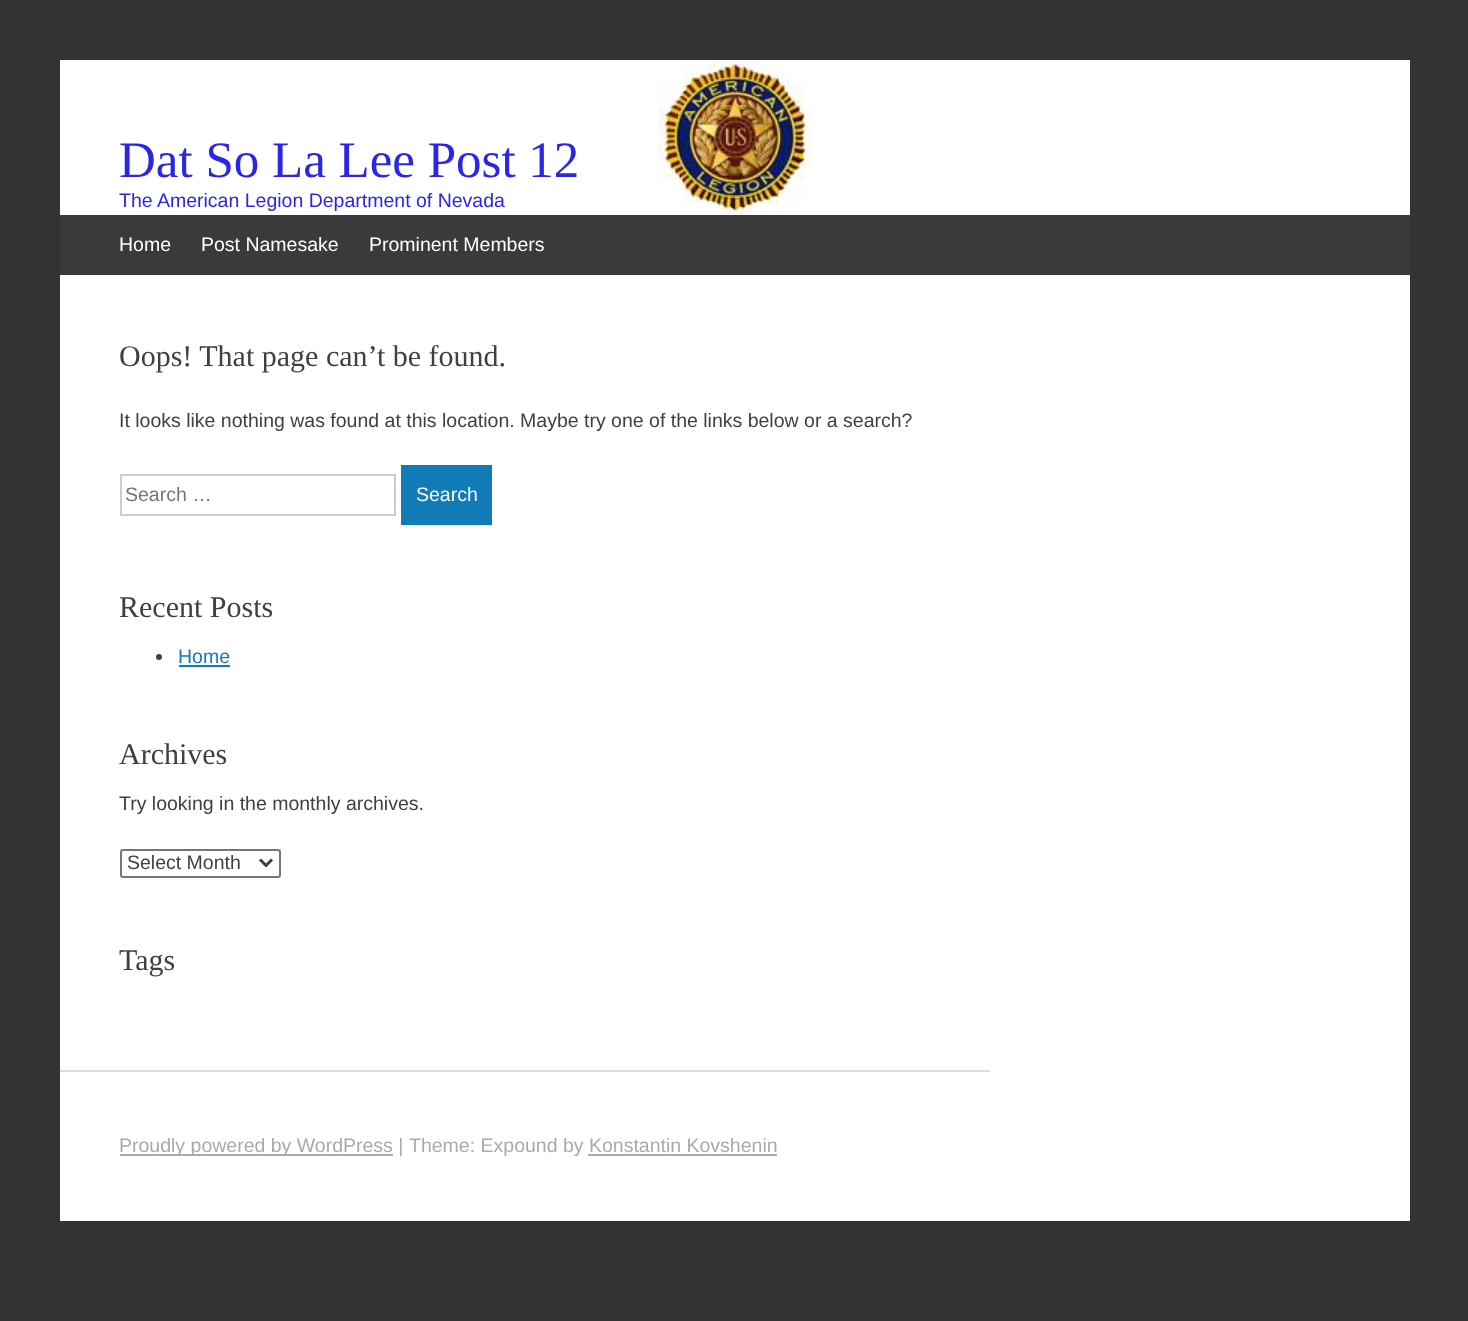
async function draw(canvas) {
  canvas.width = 1468
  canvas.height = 1321
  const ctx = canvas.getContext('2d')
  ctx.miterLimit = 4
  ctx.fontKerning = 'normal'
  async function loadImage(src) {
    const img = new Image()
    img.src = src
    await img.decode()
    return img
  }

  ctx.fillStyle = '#333'
  ctx.fillRect(0, 0, 1468, 1321)
  ctx.fillStyle = '#fff'
  ctx.fillRect(60, 60, 1350, 1161)
  ctx.drawImage(await loadImage('image0.png'), 658, 60, 154, 155)
  ctx.font = '51px Liberation Serif'
  ctx.fillStyle = '#2b25e8'
  ctx.fillText('Dat So La Lee Post 12', 119, 177)
  ctx.font = '19.5px Liberation Sans'
  ctx.fillText('The American Legion Department of Nevada', 119, 207)
  ctx.fillStyle = '#3a3a3a'
  ctx.fillRect(60, 215, 1350, 60)
  ctx.fillStyle = '#fff'
  ctx.fillText('Home', 119, 251)
  ctx.fillText('Post Namesake', 201, 251)
  ctx.fillText('Prominent Members', 369, 251)
  ctx.fillStyle = '#ddd'
  ctx.fillRect(60, 1070, 930, 2)
  ctx.font = '30px Liberation Serif'
  ctx.fillStyle = '#404040'
  ctx.fillText('Oops! That page can’t be found.', 119, 366)
  ctx.font = '19.5px Liberation Sans'
  ctx.fillText('It looks like nothing was found at this location. Maybe try one of the links below or a search?', 119, 427)
  ctx.strokeStyle = '#ccc'
  ctx.lineWidth = 2
  ctx.strokeRect(121, 475, 274, 40)
  ctx.fillStyle = '#757575'
  ctx.fillText('Search …', 125, 501)
  ctx.fillStyle = '#117bb8'
  ctx.fillRect(401, 465, 91, 60)
  ctx.fillStyle = '#fff'
  ctx.fillText('Search', 416, 501)
  ctx.font = '30px Liberation Serif'
  ctx.fillStyle = '#404040'
  ctx.fillText('Recent Posts', 119, 617)
  ctx.beginPath()
  ctx.arc(159, 657, 3, 0, 2 * Math.PI)
  ctx.fill()
  ctx.font = '19.5px Liberation Sans'
  ctx.fillStyle = '#117bb8'
  ctx.fillText('Home', 178, 663)
  ctx.fillRect(179, 665, 51, 2)
  ctx.font = '30px Liberation Serif'
  ctx.fillStyle = '#404040'
  ctx.fillText('Archives', 119, 764)
  ctx.font = '19.5px Liberation Sans'
  ctx.fillText('Try looking in the monthly archives.', 119, 810)
  ctx.beginPath()
  ctx.roundRect(121, 850, 159, 27, 2)
  ctx.strokeStyle = '#767676'
  ctx.stroke()
  ctx.beginPath()
  ctx.moveTo(260, 859.5)
  ctx.lineTo(266, 865.5)
  ctx.lineTo(272, 859.5)
  ctx.strokeStyle = '#404040'
  ctx.lineWidth = 3
  ctx.stroke()
  ctx.fillText('Select Month', 127, 869)
  ctx.font = '30px Liberation Serif'
  ctx.fillText('Tags', 119, 970)
  ctx.fillStyle = '#aaa'
  ctx.fillRect(120, 1154, 273, 2)
  ctx.font = '19.5px Liberation Sans'
  ctx.fillText('Proudly powered by WordPress |', 119, 1152)
  ctx.fillText('Theme: Expound by Konstantin Kovshenin', 409, 1152)
  ctx.fillRect(588, 1154, 189, 2)
}

draw(document.querySelector('canvas'))
